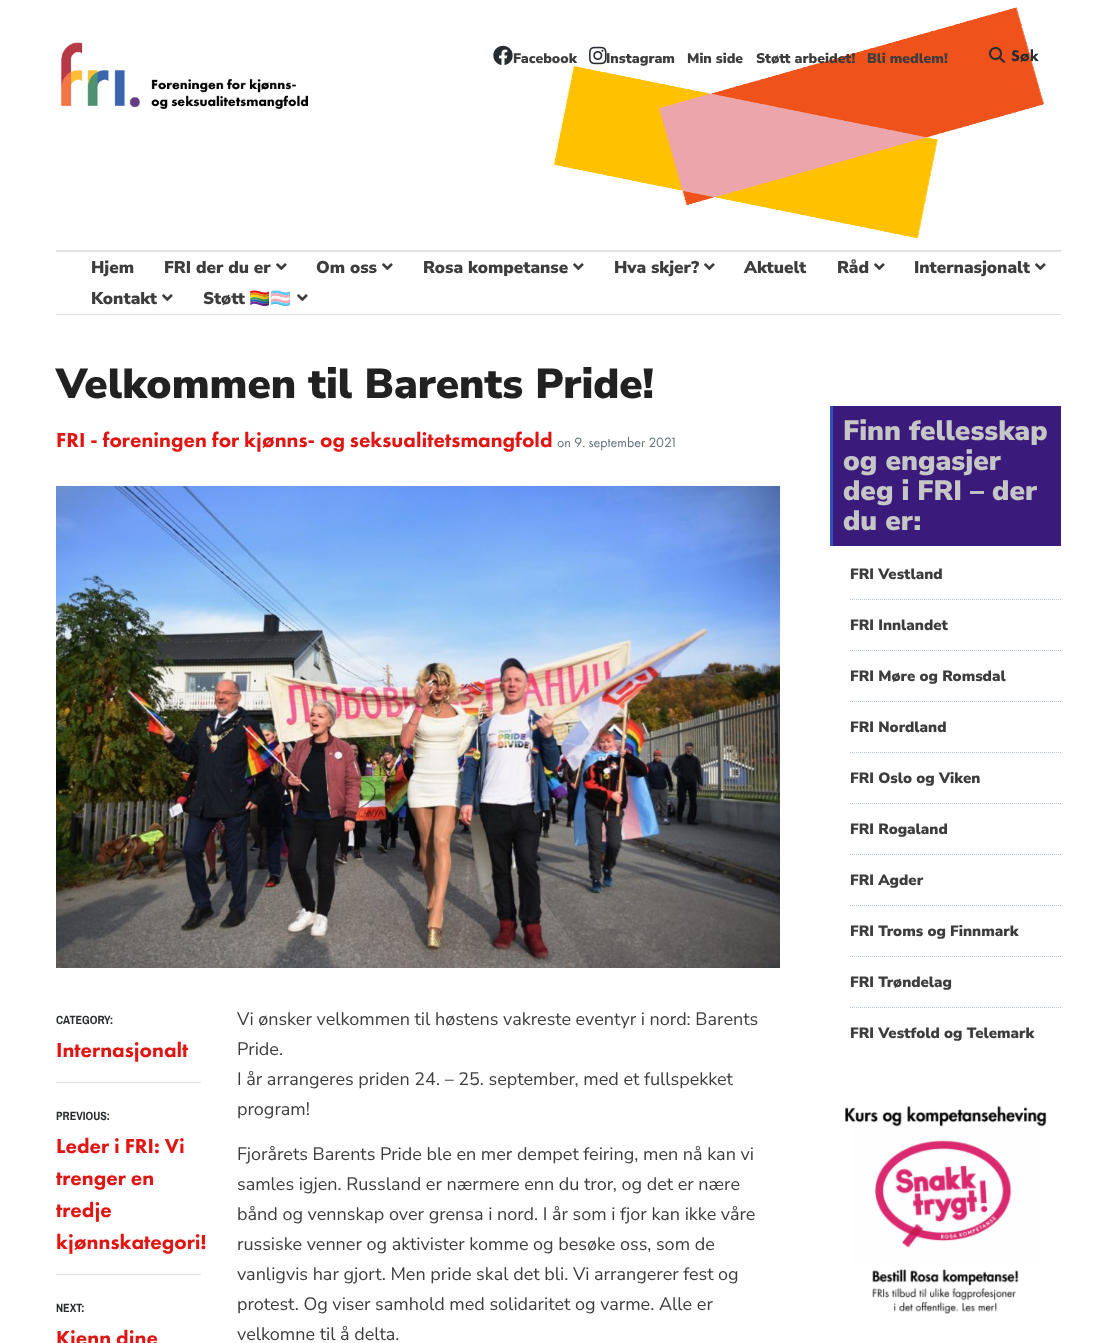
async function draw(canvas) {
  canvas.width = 1117
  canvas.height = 1343
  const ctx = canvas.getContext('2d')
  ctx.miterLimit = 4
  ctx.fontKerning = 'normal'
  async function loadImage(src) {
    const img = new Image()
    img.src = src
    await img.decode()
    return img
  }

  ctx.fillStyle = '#fff'
  ctx.fillRect(0, 0, 1117, 1343)
  ctx.drawImage(await loadImage('image0.png'), 553, 7, 491, 232)
  ctx.drawImage(await loadImage('image1.png'), 61, 42, 247, 67)
  ctx.drawImage(await loadImage('image2.png'), 493, 45, 20, 20)
  ctx.font = '900 14px Nunito Sans'
  ctx.fillStyle = '#3e3d3d'
  ctx.fillText('Facebook', 513, 63)
  ctx.drawImage(await loadImage('image3.png'), 589, 46, 18, 19)
  ctx.fillText('Instagram', 606, 63)
  ctx.fillText('Min side', 687, 63)
  ctx.fillText('Støtt arbeidet!', 756, 63)
  ctx.fillText('Bli medlem!', 867, 63)
  ctx.drawImage(await loadImage('image4.png'), 989, 47, 16, 16)
  ctx.font = '900 16px Futura PT'
  ctx.fillStyle = '#272c30'
  ctx.fillText('Søk', 1011, 61)
  ctx.fillStyle = '#e1e1e1'
  ctx.fillRect(56, 250, 1005, 2)
  ctx.fillRect(56, 314, 1005, 1)
  ctx.font = '900 17px Nunito Sans'
  ctx.fillStyle = '#3e3d3d'
  ctx.fillText('Hjem', 91, 273)
  ctx.fillText('FRI der du er', 164, 273)
  ctx.drawImage(await loadImage('image5.png'), 276, 263, 11, 7)
  ctx.fillText('Om oss', 316, 273)
  ctx.drawImage(await loadImage('image5.png'), 382, 263, 11, 7)
  ctx.fillText('Rosa kompetanse', 423, 273)
  ctx.drawImage(await loadImage('image5.png'), 573, 263, 11, 7)
  ctx.fillText('Hva skjer?', 614, 273)
  ctx.drawImage(await loadImage('image5.png'), 704, 263, 11, 7)
  ctx.fillText('Aktuelt', 744, 273)
  ctx.fillText('Råd', 837, 273)
  ctx.drawImage(await loadImage('image5.png'), 874, 263, 11, 7)
  ctx.fillText('Internasjonalt', 914, 273)
  ctx.drawImage(await loadImage('image5.png'), 1035, 263, 11, 7)
  ctx.fillText('Kontakt', 91, 304)
  ctx.drawImage(await loadImage('image5.png'), 162, 294, 11, 7)
  ctx.fillText('Støtt', 203, 304)
  ctx.font = 'bold 17px Noto Color Emoji'
  ctx.fillText('🏳️‍🌈🏳️‍⚧️', 249, 304)
  ctx.drawImage(await loadImage('image5.png'), 297, 294, 11, 7)
  ctx.font = '900 42px Nunito Sans'
  ctx.fillStyle = '#212121'
  ctx.fillText('Velkommen til Barents Pride!', 56, 398)
  ctx.font = '900 21px Futura PT'
  ctx.fillStyle = '#e11612'
  ctx.fillText('FRI - foreningen for kjønns- og seksualitetsmangfold', 56, 447)
  ctx.font = '14px Futura PT'
  ctx.fillStyle = '#62707c'
  ctx.fillText('on 9. september 2021', 557, 447)
  ctx.drawImage(await loadImage('image6.png'), 56, 486, 724, 482)
  ctx.fillStyle = '#e1e1e1'
  ctx.fillRect(56, 1082, 145, 1)
  ctx.font = 'bold 12px Archivo Narrow'
  ctx.fillStyle = '#272c30'
  ctx.fillText('CATEGORY:', 56, 1024)
  ctx.font = '900 21px Futura PT'
  ctx.fillStyle = '#e11612'
  ctx.fillText('Internasjonalt', 56, 1057)
  ctx.font = 'bold 12px Archivo Narrow'
  ctx.fillStyle = '#272c30'
  ctx.fillText('PREVIOUS:', 56, 1120)
  ctx.font = '900 21px Futura PT'
  ctx.fillStyle = '#e11612'
  ctx.fillText('Leder i FRI: Vi', 56, 1153)
  ctx.fillText('trenger en', 56, 1185)
  ctx.fillText('tredje', 56, 1217)
  ctx.fillText('kjønnskategori!', 56, 1249)
  ctx.fillStyle = '#e1e1e1'
  ctx.fillRect(56, 1274, 145, 1)
  ctx.font = 'bold 12px Archivo Narrow'
  ctx.fillStyle = '#272c30'
  ctx.fillText('NEXT:', 56, 1312)
  ctx.font = '900 21px Futura PT'
  ctx.fillStyle = '#e11612'
  ctx.fillText('Kjenn dine', 56, 1345)
  ctx.font = '18px Nunito Sans'
  ctx.fillStyle = '#3e3d3d'
  ctx.fillText('Vi ønsker velkommen til høstens vakreste eventyr i nord: Barents', 237, 1025)
  ctx.fillText('Pride.', 237, 1055)
  ctx.fillText('I år arrangeres priden 24. – 25. september, med et fullspekket', 237, 1085)
  ctx.fillText('program!', 237, 1115)
  ctx.fillText('Fjorårets Barents Pride ble en mer dempet feiring, men nå kan vi', 237, 1160)
  ctx.fillText('samles igjen. Russland er nærmere enn du tror, og det er nære', 237, 1190)
  ctx.fillText('bånd og vennskap over grensa i nord. I år som i fjor kan ikke våre', 237, 1220)
  ctx.fillText('russiske venner og aktivister komme og besøke oss, som de', 237, 1250)
  ctx.fillText('vanligvis har gjort. Men pride skal det bli. Vi arrangerer fest og', 237, 1280)
  ctx.fillText('protest. Og viser samhold med solidaritet og varme. Alle er', 237, 1310)
  ctx.fillText('velkomne til å delta.', 237, 1340)
  ctx.fillStyle = '#3a1b7b'
  ctx.fillRect(833, 406, 228, 140)
  ctx.fillStyle = '#3350b9'
  ctx.fillRect(830, 406, 3, 140)
  ctx.font = '900 28px Nunito Sans'
  ctx.fillStyle = '#c6c6c6'
  ctx.fillText('Finn fellesskap', 843, 440)
  ctx.fillText('og engasjer', 843, 470)
  ctx.fillText('deg i FRI – der', 843, 500)
  ctx.fillText('du er:', 843, 530)
  ctx.beginPath()
  ctx.moveTo(850, 599.5)
  ctx.lineTo(1061, 599.5)
  ctx.strokeStyle = '#b7c6d3'
  ctx.setLineDash([1, 1])
  ctx.stroke()
  ctx.font = '900 15px Nunito Sans'
  ctx.fillStyle = '#3e3d3d'
  ctx.fillText('FRI Vestland', 850, 579)
  ctx.beginPath()
  ctx.moveTo(850, 650.5)
  ctx.lineTo(1061, 650.5)
  ctx.stroke()
  ctx.fillText('FRI Innlandet', 850, 630)
  ctx.beginPath()
  ctx.moveTo(850, 701.5)
  ctx.lineTo(1061, 701.5)
  ctx.stroke()
  ctx.fillText('FRI Møre og Romsdal', 850, 681)
  ctx.beginPath()
  ctx.moveTo(850, 752.5)
  ctx.lineTo(1061, 752.5)
  ctx.stroke()
  ctx.fillText('FRI Nordland', 850, 732)
  ctx.beginPath()
  ctx.moveTo(850, 803.5)
  ctx.lineTo(1061, 803.5)
  ctx.stroke()
  ctx.fillText('FRI Oslo og Viken', 850, 783)
  ctx.beginPath()
  ctx.moveTo(850, 854.5)
  ctx.lineTo(1061, 854.5)
  ctx.stroke()
  ctx.fillText('FRI Rogaland', 850, 834)
  ctx.beginPath()
  ctx.moveTo(850, 905.5)
  ctx.lineTo(1061, 905.5)
  ctx.stroke()
  ctx.fillText('FRI Agder', 850, 885)
  ctx.beginPath()
  ctx.moveTo(850, 956.5)
  ctx.lineTo(1061, 956.5)
  ctx.stroke()
  ctx.fillText('FRI Troms og Finnmark', 850, 936)
  ctx.beginPath()
  ctx.moveTo(850, 1007.5)
  ctx.lineTo(1061, 1007.5)
  ctx.stroke()
  ctx.fillText('FRI Trøndelag', 850, 987)
  ctx.fillText('FRI Vestfold og Telemark', 850, 1038)
  ctx.drawImage(await loadImage('image7.png'), 845, 1106, 202, 208)
}

draw(document.querySelector('canvas'))
